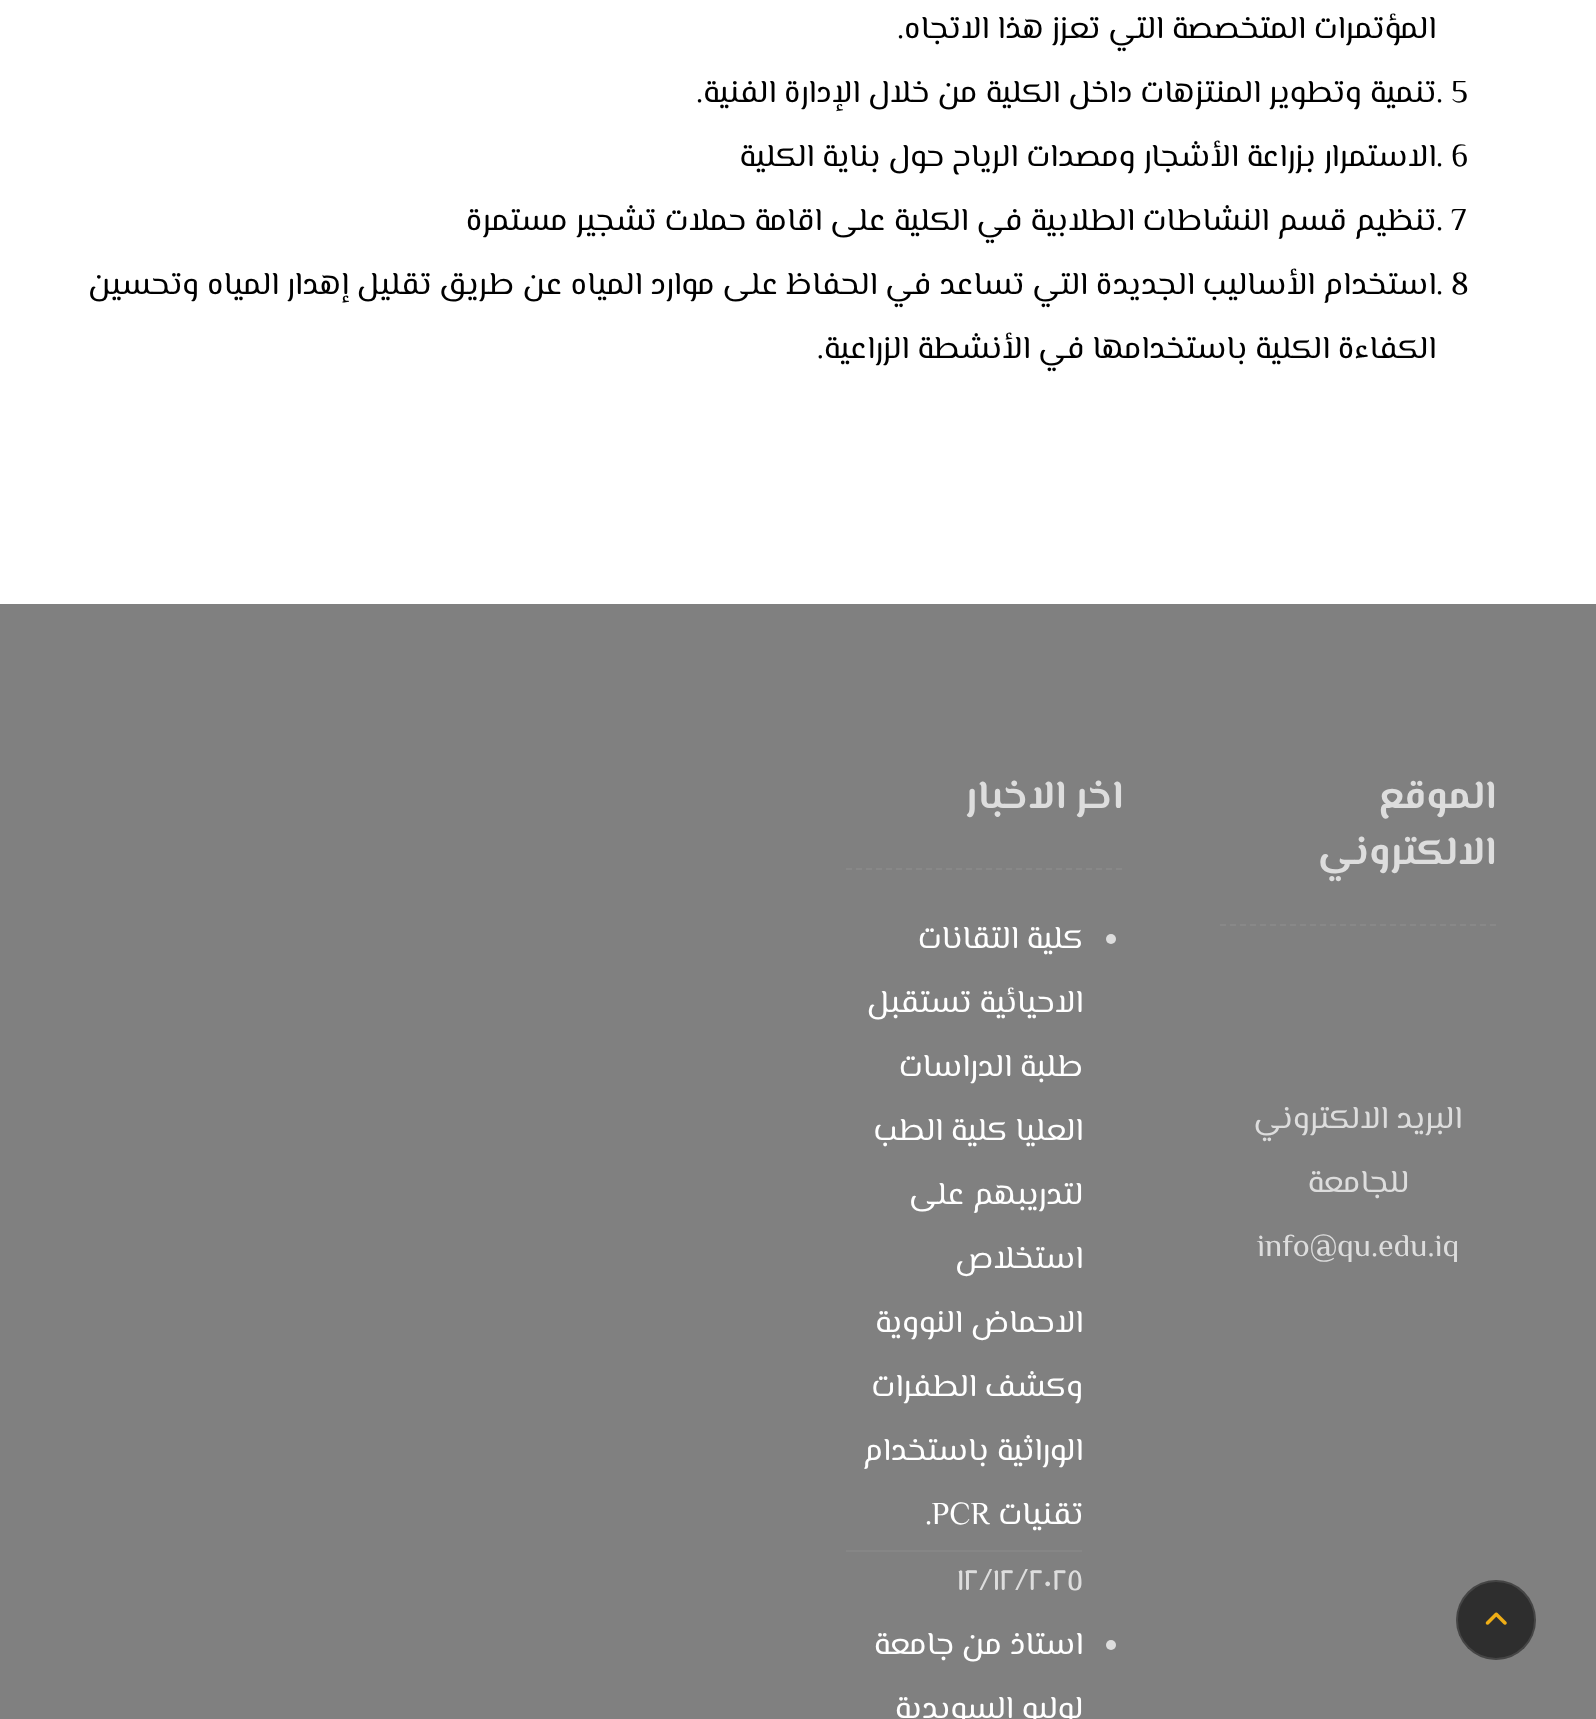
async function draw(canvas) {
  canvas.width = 1596
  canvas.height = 1719
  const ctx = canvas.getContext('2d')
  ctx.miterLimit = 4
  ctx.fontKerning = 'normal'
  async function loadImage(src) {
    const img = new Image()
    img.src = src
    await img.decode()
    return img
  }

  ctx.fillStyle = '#fff'
  ctx.fillRect(0, 0, 1596, 1719)
  ctx.fillStyle = '#808080'
  ctx.fillRect(0, 604, 1596, 1115)
  ctx.fillStyle = '#2e2e2e'
  ctx.beginPath()
  ctx.arc(1496, 1620, 40, 0, 2 * Math.PI)
  ctx.fill()
  ctx.beginPath()
  ctx.arc(1496, 1620, 39, 0, 2 * Math.PI)
  ctx.strokeStyle = '#a7a7a733'
  ctx.lineWidth = 2
  ctx.stroke()
  ctx.drawImage(await loadImage('image0.png'), 1485, 1612, 22, 13)
  ctx.direction = 'rtl'
  ctx.font = '32px El Messiri'
  ctx.fillStyle = '#000'
  ctx.fillText('المؤتمرات المتخصصة التي تعزز هذا الاتجاه.', 1436, 38)
  ctx.direction = 'ltr'
  ctx.fillText('. 5', 1436, 102)
  ctx.direction = 'rtl'
  ctx.fillText('تنمية وتطوير المنتزهات داخل الكلية من خلال الإدارة الفنية.', 1436, 102)
  ctx.direction = 'ltr'
  ctx.fillText('. 6', 1436, 166)
  ctx.direction = 'rtl'
  ctx.fillText('الاستمرار بزراعة الأشجار ومصدات الرياح حول بناية الكلية', 1436, 166)
  ctx.direction = 'ltr'
  ctx.fillText('. 7', 1436, 230)
  ctx.direction = 'rtl'
  ctx.fillText('تنظيم قسم النشاطات الطلابية في الكلية على اقامة حملات تشجير مستمرة', 1436, 230)
  ctx.direction = 'ltr'
  ctx.fillText('. 8', 1436, 294)
  ctx.direction = 'rtl'
  ctx.fillText('استخدام الأساليب الجديدة التي تساعد في الحفاظ على موارد المياه عن طريق تقليل إهدار المياه وتحسين', 1436, 294)
  ctx.fillText('الكفاءة الكلية باستخدامها في الأنشطة الزراعية.', 1436, 358)
  ctx.beginPath()
  ctx.moveTo(1220, 925)
  ctx.lineTo(1496, 925)
  ctx.strokeStyle = '#888'
  ctx.setLineDash([6, 4])
  ctx.stroke()
  ctx.font = 'bold 40px El Messiri'
  ctx.fillStyle = '#ddd'
  ctx.fillText('الموقع', 1496, 808)
  ctx.fillText('الالكتروني', 1496, 864)
  ctx.font = '32px El Messiri'
  ctx.fillText('البريد الالكتروني', 1462, 1128)
  ctx.fillText('للجامعة', 1409, 1192)
  ctx.direction = 'ltr'
  ctx.fillText('info@qu.edu.iq', 1257, 1256)
  ctx.beginPath()
  ctx.moveTo(846, 869)
  ctx.lineTo(1122, 869)
  ctx.stroke()
  ctx.direction = 'rtl'
  ctx.font = 'bold 40px El Messiri'
  ctx.fillText('اخر الاخبار', 1123, 808)
  ctx.beginPath()
  ctx.arc(1111, 939, 5, 0, 2 * Math.PI)
  ctx.fill()
  ctx.fillStyle = '#868686'
  ctx.fillRect(846, 1550, 236, 2)
  ctx.font = '32px El Messiri'
  ctx.fillStyle = '#fff'
  ctx.fillText('كلية التقانات', 1083, 948)
  ctx.fillText('الاحيائية تستقبل', 1083, 1012)
  ctx.fillText('طلبة الدراسات', 1083, 1076)
  ctx.fillText('العليا كلية الطب', 1083, 1140)
  ctx.fillText('لتدريبهم على', 1083, 1204)
  ctx.fillText('استخلاص', 1083, 1268)
  ctx.fillText('الاحماض النووية', 1083, 1332)
  ctx.fillText('وكشف الطفرات', 1083, 1396)
  ctx.fillText('الوراثية باستخدام', 1083, 1460)
  ctx.fillText('تقنيات', 1083, 1524)
  ctx.direction = 'ltr'
  ctx.fillText('.PCR', 925, 1524)
  ctx.fillStyle = '#ddd'
  ctx.fillText('١٢/١٢/٢٠٢٥', 957, 1590)
  ctx.beginPath()
  ctx.arc(1111, 1645, 5, 0, 2 * Math.PI)
  ctx.fill()
  ctx.direction = 'rtl'
  ctx.fillStyle = '#fff'
  ctx.fillText('استاذ من جامعة', 1083, 1654)
  ctx.fillText('لوليو السويدية', 1083, 1718)
}

draw(document.querySelector('canvas'))
